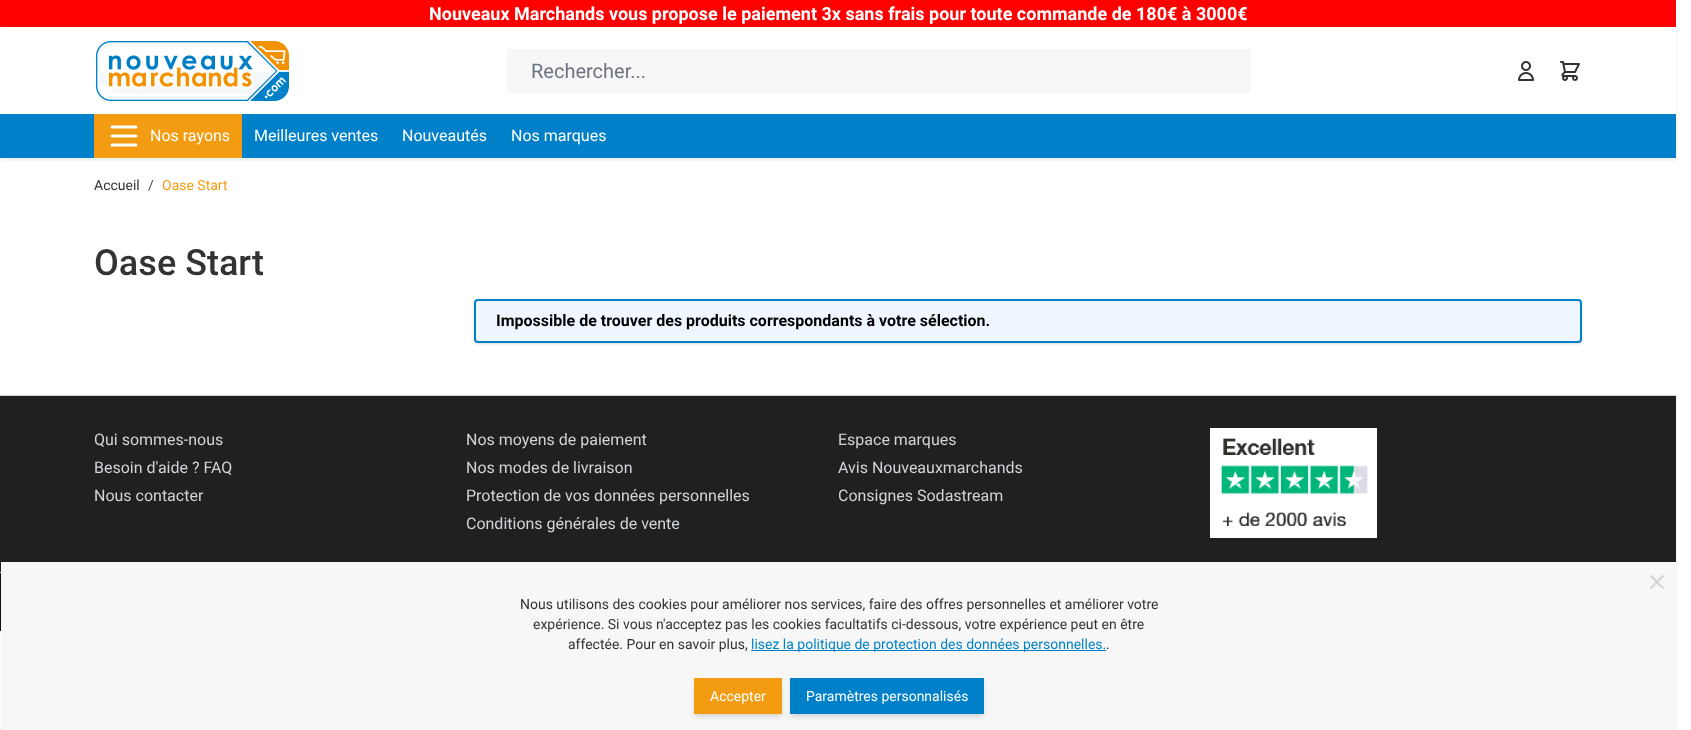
async function draw(canvas) {
  canvas.width = 1691
  canvas.height = 730
  const ctx = canvas.getContext('2d')
  ctx.miterLimit = 4
  ctx.fontKerning = 'normal'
  async function loadImage(src) {
    const img = new Image()
    img.src = src
    await img.decode()
    return img
  }

  ctx.fillStyle = '#fff'
  ctx.fillRect(0, 0, 1691, 730)
  ctx.fillStyle = '#f00'
  ctx.fillRect(0, 0, 1676, 27)
  ctx.font = 'bold 18px Roboto'
  ctx.fillStyle = '#fff'
  ctx.fillText('Nouveaux Marchands vous propose le paiement 3x sans frais pour toute commande de 180€ à 3000€', 429, 20)
  ctx.save()
  ctx.beginPath()
  ctx.moveTo(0, 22)
  ctx.lineTo(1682, 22)
  ctx.lineTo(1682, 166)
  ctx.lineTo(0, 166)
  ctx.closePath()
  ctx.moveTo(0, 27)
  ctx.lineTo(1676, 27)
  ctx.lineTo(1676, 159)
  ctx.lineTo(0, 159)
  ctx.closePath()
  ctx.clip('evenodd')
  ctx.fillStyle = '#0000001a'
  ctx.filter = 'blur(1.5px)'
  ctx.beginPath()
  ctx.rect(0, 28, 1676, 132)
  ctx.fill()
  ctx.filter = 'none'
  ctx.restore()
  ctx.fillStyle = '#f5f5f5'
  ctx.fillRect(0, 158, 1676, 1)
  ctx.drawImage(await loadImage('image0.png'), 96, 41, 193, 60)
  ctx.fillStyle = '#f7f7f7'
  ctx.fillRect(507, 49, 744, 44)
  ctx.font = '20px Roboto'
  ctx.fillStyle = '#6b7280'
  ctx.fillText('Rechercher...', 531, 78)
  ctx.drawImage(await loadImage('image1.png'), 1518, 61, 16, 20)
  ctx.drawImage(await loadImage('image2.png'), 1560, 61, 20, 20)
  ctx.fillStyle = '#0080c8'
  ctx.fillRect(0, 114, 1676, 44)
  ctx.fillStyle = '#f39c12'
  ctx.fillRect(94, 114, 148, 44)
  ctx.beginPath()
  ctx.moveTo(112, 127)
  ctx.lineTo(136, 127)
  ctx.moveTo(112, 136)
  ctx.lineTo(136, 136)
  ctx.moveTo(112, 145)
  ctx.lineTo(136, 145)
  ctx.strokeStyle = '#fff'
  ctx.lineWidth = 3
  ctx.lineCap = 'round'
  ctx.lineJoin = 'round'
  ctx.stroke()
  ctx.font = '16px Roboto'
  ctx.fillStyle = '#fff'
  ctx.fillText('Nos rayons', 150, 141)
  ctx.fillText('Meilleures ventes', 254, 141)
  ctx.fillText('Nouveautés', 402, 141)
  ctx.fillText('Nos marques', 511, 141)
  ctx.font = '14px Roboto'
  ctx.fillStyle = '#333'
  ctx.fillText('Accueil', 94, 190)
  ctx.fillStyle = '#434343'
  ctx.fillText('/', 148, 190)
  ctx.fillStyle = '#f39c12'
  ctx.fillText('Oase Start', 162, 190)
  ctx.font = '500 36px Roboto'
  ctx.fillStyle = '#333'
  ctx.fillText('Oase Start', 94, 275)
  ctx.fillStyle = '#0000001a'
  ctx.filter = 'blur(1px)'
  ctx.beginPath()
  ctx.roundRect(475, 301, 1106, 42, 3)
  ctx.fill()
  ctx.filter = 'none'
  ctx.filter = 'blur(1.5px)'
  ctx.beginPath()
  ctx.roundRect(474, 300, 1108, 44, 4)
  ctx.fill()
  ctx.filter = 'none'
  ctx.fillStyle = '#eff6ff'
  ctx.beginPath()
  ctx.roundRect(475, 300, 1106, 42, 3)
  ctx.fill()
  ctx.strokeStyle = '#0080c8'
  ctx.lineWidth = 2
  ctx.lineJoin = 'miter'
  ctx.stroke()
  ctx.font = 'bold 16px Roboto'
  ctx.fillStyle = '#000'
  ctx.fillText('Impossible de trouver des produits correspondants à votre sélection.', 496, 326)
  ctx.fillStyle = '#0000001a'
  ctx.filter = 'blur(1.5px)'
  ctx.beginPath()
  ctx.rect(0, 396, 1676, 236)
  ctx.fill()
  ctx.filter = 'none'
  ctx.fillStyle = '#202020'
  ctx.fillRect(0, 396, 1676, 176)
  ctx.fillStyle = '#d1d5db'
  ctx.fillRect(0, 395, 1676, 1)
  ctx.font = '16px Roboto'
  ctx.fillText('Qui sommes-nous', 94, 445)
  ctx.fillText('Besoin d\'aide ? FAQ', 94, 473)
  ctx.fillText('Nous contacter', 94, 501)
  ctx.fillText('Nos moyens de paiement', 466, 445)
  ctx.fillText('Nos modes de livraison', 466, 473)
  ctx.fillText('Protection de vos données personnelles', 466, 501)
  ctx.fillText('Conditions générales de vente', 466, 529)
  ctx.fillText('Espace marques', 838, 445)
  ctx.fillText('Avis Nouveauxmarchands', 838, 473)
  ctx.fillText('Consignes Sodastream', 838, 501)
  ctx.drawImage(await loadImage('image3.png'), 1210, 428, 167, 110)
  ctx.fillStyle = '#121212'
  ctx.fillRect(0, 573, 1, 58)
  ctx.fillStyle = '#d1d5db'
  ctx.fillRect(0, 572, 1, 1)
  ctx.fillStyle = '#e5e7eb'
  ctx.fillRect(0, 728, 1, 2)
  ctx.fillStyle = '#f7f7f7'
  ctx.fillRect(1, 562, 1676, 168)
  ctx.beginPath()
  ctx.moveTo(1651, 588)
  ctx.lineTo(1663, 576)
  ctx.moveTo(1651, 576)
  ctx.lineTo(1663, 588)
  ctx.strokeStyle = '#d1d5db'
  ctx.lineJoin = 'round'
  ctx.stroke()
  ctx.font = '14px Roboto'
  ctx.fillStyle = '#333'
  ctx.fillText('Nous utilisons des cookies pour améliorer nos services, faire des offres personnelles et améliorer votre', 520, 609)
  ctx.fillText('expérience. Si vous n\'acceptez pas les cookies facultatifs ci-dessous, votre expérience peut en être', 533, 629)
  ctx.fillText('affectée. Pour en savoir plus,', 568, 649)
  ctx.fillStyle = '#0080c8'
  ctx.fillRect(751, 650, 355, 1)
  ctx.fillText('lisez la politique de protection des données personnelles.', 751, 649)
  ctx.fillStyle = '#333'
  ctx.fillText('.', 1106, 649)
  ctx.fillStyle = '#0000001a'
  ctx.filter = 'blur(2px)'
  ctx.beginPath()
  ctx.rect(696, 682, 84, 32)
  ctx.fill()
  ctx.filter = 'none'
  ctx.filter = 'blur(3px)'
  ctx.beginPath()
  ctx.rect(695, 683, 86, 34)
  ctx.fill()
  ctx.filter = 'none'
  ctx.fillStyle = '#f39c12'
  ctx.fillRect(694, 678, 88, 36)
  ctx.fillStyle = '#fff'
  ctx.fillText('Accepter', 710, 701)
  ctx.fillStyle = '#0000001a'
  ctx.filter = 'blur(2px)'
  ctx.beginPath()
  ctx.rect(792, 682, 190, 32)
  ctx.fill()
  ctx.filter = 'none'
  ctx.filter = 'blur(3px)'
  ctx.beginPath()
  ctx.rect(791, 683, 192, 34)
  ctx.fill()
  ctx.filter = 'none'
  ctx.fillStyle = '#0080c8'
  ctx.fillRect(790, 678, 194, 36)
  ctx.fillStyle = '#fff'
  ctx.fillText('Paramètres personnalisés', 806, 701)
}

draw(document.querySelector('canvas'))
